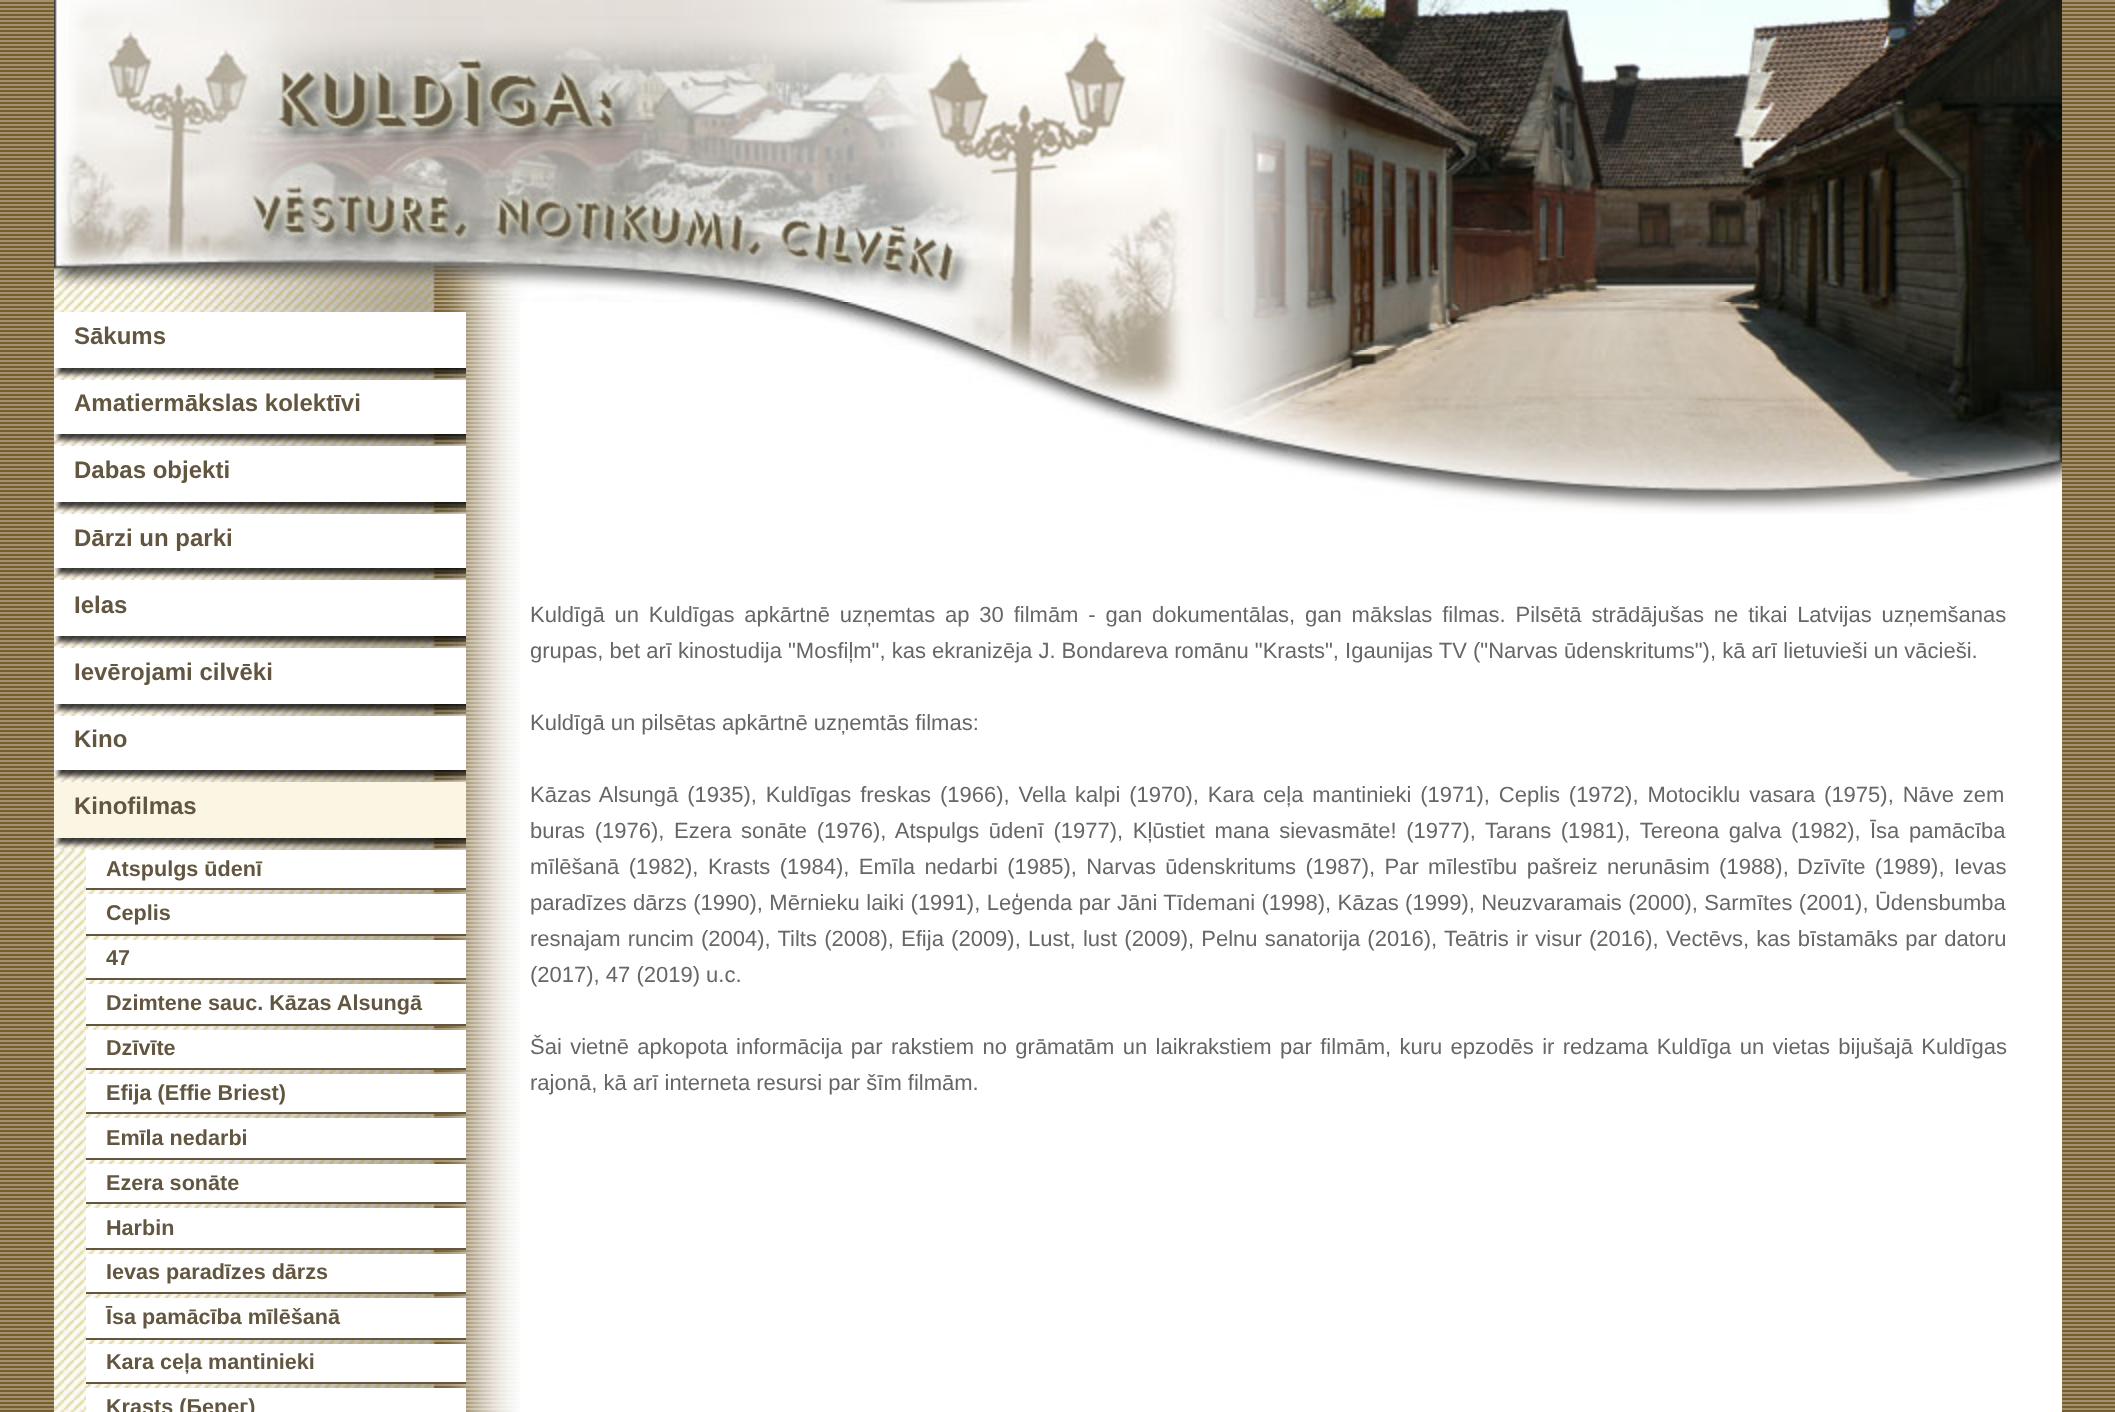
async function draw(canvas) {
  canvas.width = 2115
  canvas.height = 1412
  const ctx = canvas.getContext('2d')
  ctx.miterLimit = 4
  ctx.fontKerning = 'normal'
  async function loadImage(src) {
    const img = new Image()
    img.src = src
    await img.decode()
    return img
  }

  ctx.fillStyle = '#fff'
  ctx.fillRect(0, 0, 2115, 1412)
  ctx.drawImage(await loadImage('image0.png'), 0, 0, 2115, 1412)
  ctx.drawImage(await loadImage('image1.png'), 54, 0, 2008, 302)
  ctx.drawImage(await loadImage('image2.png'), 54, 302, 466, 1110)
  ctx.fillRect(54, 312, 412, 56)
  ctx.font = 'bold 24px Liberation Sans'
  ctx.fillStyle = '#625640'
  ctx.fillText('Sākums', 74, 344)
  ctx.drawImage(await loadImage('image3.png'), 54, 368, 412, 12)
  ctx.fillStyle = '#fff'
  ctx.fillRect(54, 380, 412, 54)
  ctx.fillStyle = '#625640'
  ctx.fillText('Amatiermākslas kolektīvi', 74, 411)
  ctx.drawImage(await loadImage('image3.png'), 54, 434, 412, 12)
  ctx.fillStyle = '#fff'
  ctx.fillRect(54, 446, 412, 56)
  ctx.fillStyle = '#625640'
  ctx.fillText('Dabas objekti', 74, 478)
  ctx.drawImage(await loadImage('image3.png'), 54, 502, 412, 12)
  ctx.fillStyle = '#fff'
  ctx.fillRect(54, 514, 412, 54)
  ctx.fillStyle = '#625640'
  ctx.fillText('Dārzi un parki', 74, 546)
  ctx.drawImage(await loadImage('image3.png'), 54, 568, 412, 12)
  ctx.fillStyle = '#fff'
  ctx.fillRect(54, 580, 412, 56)
  ctx.fillStyle = '#625640'
  ctx.fillText('Ielas', 74, 613)
  ctx.drawImage(await loadImage('image3.png'), 54, 636, 412, 12)
  ctx.fillStyle = '#fff'
  ctx.fillRect(54, 648, 412, 56)
  ctx.fillStyle = '#625640'
  ctx.fillText('Ievērojami cilvēki', 74, 680)
  ctx.drawImage(await loadImage('image3.png'), 54, 704, 412, 12)
  ctx.fillStyle = '#fff'
  ctx.fillRect(54, 716, 412, 54)
  ctx.fillStyle = '#625640'
  ctx.fillText('Kino', 74, 747)
  ctx.drawImage(await loadImage('image3.png'), 54, 770, 412, 12)
  ctx.fillStyle = '#fbf6e3'
  ctx.fillRect(54, 782, 412, 56)
  ctx.fillStyle = '#625640'
  ctx.fillText('Kinofilmas', 74, 814)
  ctx.drawImage(await loadImage('image3.png'), 54, 838, 412, 12)
  ctx.fillStyle = '#fff'
  ctx.fillRect(86, 850, 380, 38)
  ctx.fillStyle = '#625640'
  ctx.fillRect(86, 888, 380, 2)
  ctx.font = 'bold 21.6px Liberation Sans'
  ctx.fillText('Atspulgs ūdenī', 106, 876)
  ctx.fillStyle = '#fff'
  ctx.fillRect(86, 894, 380, 40)
  ctx.fillStyle = '#625640'
  ctx.fillRect(86, 934, 380, 2)
  ctx.fillText('Ceplis', 106, 920)
  ctx.fillStyle = '#fff'
  ctx.fillRect(86, 940, 380, 38)
  ctx.fillStyle = '#625640'
  ctx.fillRect(86, 978, 380, 2)
  ctx.fillText('47', 106, 965)
  ctx.fillStyle = '#fff'
  ctx.fillRect(86, 984, 380, 40)
  ctx.fillStyle = '#625640'
  ctx.fillRect(86, 1024, 380, 2)
  ctx.fillText('Dzimtene sauc. Kāzas Alsungā', 106, 1010)
  ctx.fillStyle = '#fff'
  ctx.fillRect(86, 1030, 380, 38)
  ctx.fillStyle = '#625640'
  ctx.fillRect(86, 1068, 380, 2)
  ctx.fillText('Dzīvīte', 106, 1055)
  ctx.fillStyle = '#fff'
  ctx.fillRect(86, 1074, 380, 38)
  ctx.fillStyle = '#625640'
  ctx.fillRect(86, 1112, 380, 2)
  ctx.fillText('Efija (Effie Briest)', 106, 1100)
  ctx.fillStyle = '#fff'
  ctx.fillRect(86, 1118, 380, 40)
  ctx.fillStyle = '#625640'
  ctx.fillRect(86, 1158, 380, 2)
  ctx.fillText('Emīla nedarbi', 106, 1145)
  ctx.fillStyle = '#fff'
  ctx.fillRect(86, 1164, 380, 38)
  ctx.fillStyle = '#625640'
  ctx.fillRect(86, 1202, 380, 2)
  ctx.fillText('Ezera sonāte', 106, 1190)
  ctx.fillStyle = '#fff'
  ctx.fillRect(86, 1208, 380, 40)
  ctx.fillStyle = '#625640'
  ctx.fillRect(86, 1248, 380, 2)
  ctx.fillText('Harbin', 106, 1235)
  ctx.fillStyle = '#fff'
  ctx.fillRect(86, 1254, 380, 38)
  ctx.fillStyle = '#625640'
  ctx.fillRect(86, 1292, 380, 2)
  ctx.fillText('Ievas paradīzes dārzs', 106, 1279)
  ctx.fillStyle = '#fff'
  ctx.fillRect(86, 1298, 380, 40)
  ctx.fillStyle = '#625640'
  ctx.fillRect(86, 1338, 380, 2)
  ctx.fillText('Īsa pamācība mīlēšanā', 106, 1324)
  ctx.fillStyle = '#fff'
  ctx.fillRect(86, 1344, 380, 38)
  ctx.fillStyle = '#625640'
  ctx.fillRect(86, 1382, 380, 2)
  ctx.fillText('Kara ceļa mantinieki', 106, 1369)
  ctx.fillStyle = '#fff'
  ctx.fillRect(86, 1388, 380, 24)
  ctx.fillStyle = '#625640'
  ctx.fillText('Krasts (Берег)', 106, 1414)
  ctx.fillStyle = '#fff'
  ctx.fillRect(520, 302, 1542, 1110)
  ctx.drawImage(await loadImage('image4.png'), 751, 302, 1311, 48)
  ctx.drawImage(await loadImage('image5.png'), 935, 350, 1127, 164)
  ctx.wordSpacing = '3.75px'
  ctx.font = '22px Liberation Sans'
  ctx.fillStyle = '#666'
  ctx.fillText('Kuldīgā un Kuldīgas apkārtnē uzņemtas ap 30 filmām - gan dokumentālas, gan mākslas filmas. Pilsētā strādājušas ne tikai Latvijas uzņemšanas', 530, 622)
  ctx.wordSpacing = '0px'
  ctx.fillText('grupas, bet arī kinostudija "Mosfiļm", kas ekranizēja J. Bondareva romānu "Krasts", Igaunijas TV ("Narvas ūdenskritums"), kā arī lietuvieši un vācieši.', 530, 658)
  ctx.fillText('Kuldīgā un pilsētas apkārtnē uzņemtās filmas:', 530, 730)
  ctx.wordSpacing = '2.75px'
  ctx.fillText('Kāzas Alsungā (1935), Kuldīgas freskas (1966), Vella kalpi (1970), Kara ceļa mantinieki (1971), Ceplis (1972), Motociklu vasara (1975), Nāve zem', 530, 802)
  ctx.wordSpacing = '3.5px'
  ctx.fillText('buras (1976), Ezera sonāte (1976), Atspulgs ūdenī (1977), Kļūstiet mana sievasmāte! (1977), Tarans (1981), Tereona galva (1982),', 530, 838)
  ctx.fillText('Īsa pamācība', 1870, 838)
  ctx.wordSpacing = '3.25px'
  ctx.fillText('mīlēšanā (1982),', 530, 874)
  ctx.fillText('Krasts (1984), Emīla nedarbi (1985), Narvas ūdenskritums (1987), Par mīlestību pašreiz nerunāsim (1988),', 708, 874)
  ctx.fillText('Dzīvīte (1989), Ievas', 1797, 874)
  ctx.wordSpacing = '0.3px'
  ctx.fillText('paradīzes dārzs (1990), Mērnieku laiki (1991), Leģenda par Jāni Tīdemani (1998), Kāzas (1999), Neuzvaramais (2000), Sarmītes (2001), Ūdensbumba', 530, 910)
  ctx.wordSpacing = '1.1px'
  ctx.fillText('resnajam runcim (2004), Tilts (2008), Efija (2009), Lust, lust (2009), Pelnu sanatorija (2016), Teātris ir visur (2016), Vectēvs, kas bīstamāks par datoru', 530, 946)
  ctx.wordSpacing = '0px'
  ctx.fillText('(2017), 47 (2019) u.c.', 530, 982)
  ctx.wordSpacing = '2.25px'
  ctx.fillText('Šai vietnē apkopota informācija par rakstiem no grāmatām un laikrakstiem par filmām, kuru epzodēs ir redzama Kuldīga un vietas bijušajā Kuldīgas', 530, 1054)
  ctx.wordSpacing = '0px'
  ctx.fillText('rajonā, kā arī interneta resursi par šīm filmām.', 530, 1090)
}

draw(document.querySelector('canvas'))
